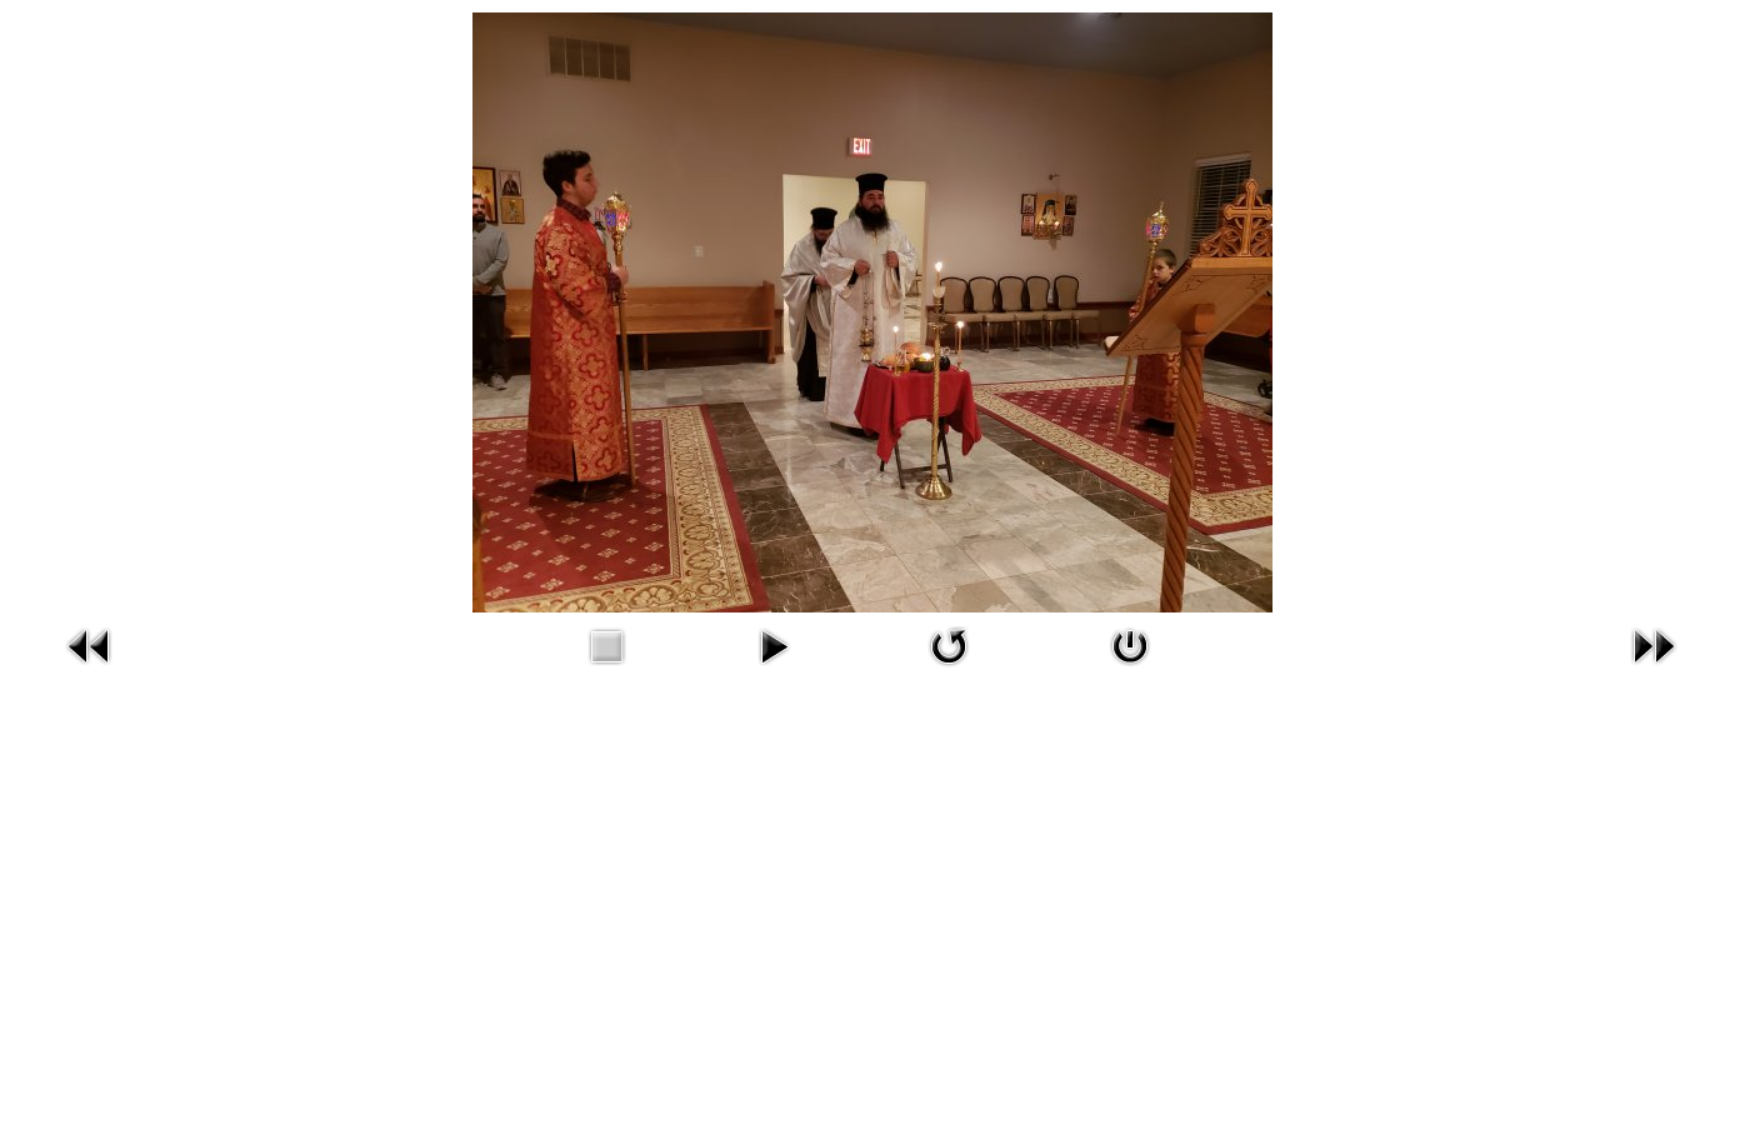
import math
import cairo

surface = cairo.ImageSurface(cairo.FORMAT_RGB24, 1743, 1122)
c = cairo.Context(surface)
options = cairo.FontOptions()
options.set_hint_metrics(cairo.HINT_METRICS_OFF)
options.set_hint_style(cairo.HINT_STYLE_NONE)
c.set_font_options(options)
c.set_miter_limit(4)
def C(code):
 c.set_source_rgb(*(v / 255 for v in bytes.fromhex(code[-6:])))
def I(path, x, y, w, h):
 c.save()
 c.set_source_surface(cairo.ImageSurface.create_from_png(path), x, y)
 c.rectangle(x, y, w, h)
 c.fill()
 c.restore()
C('ffffff')
c.paint()
I('1.png',472,12,801,601)
I('2.png',65,627,48,39)
I('3.png',587,627,40,39)
I('4.png',758,627,33,39)
I('5.png',927,626,43,42)
I('6.png',1109,627,42,40)
I('7.png',1630,627,48,39)
surface.write_to_png('o.png')
